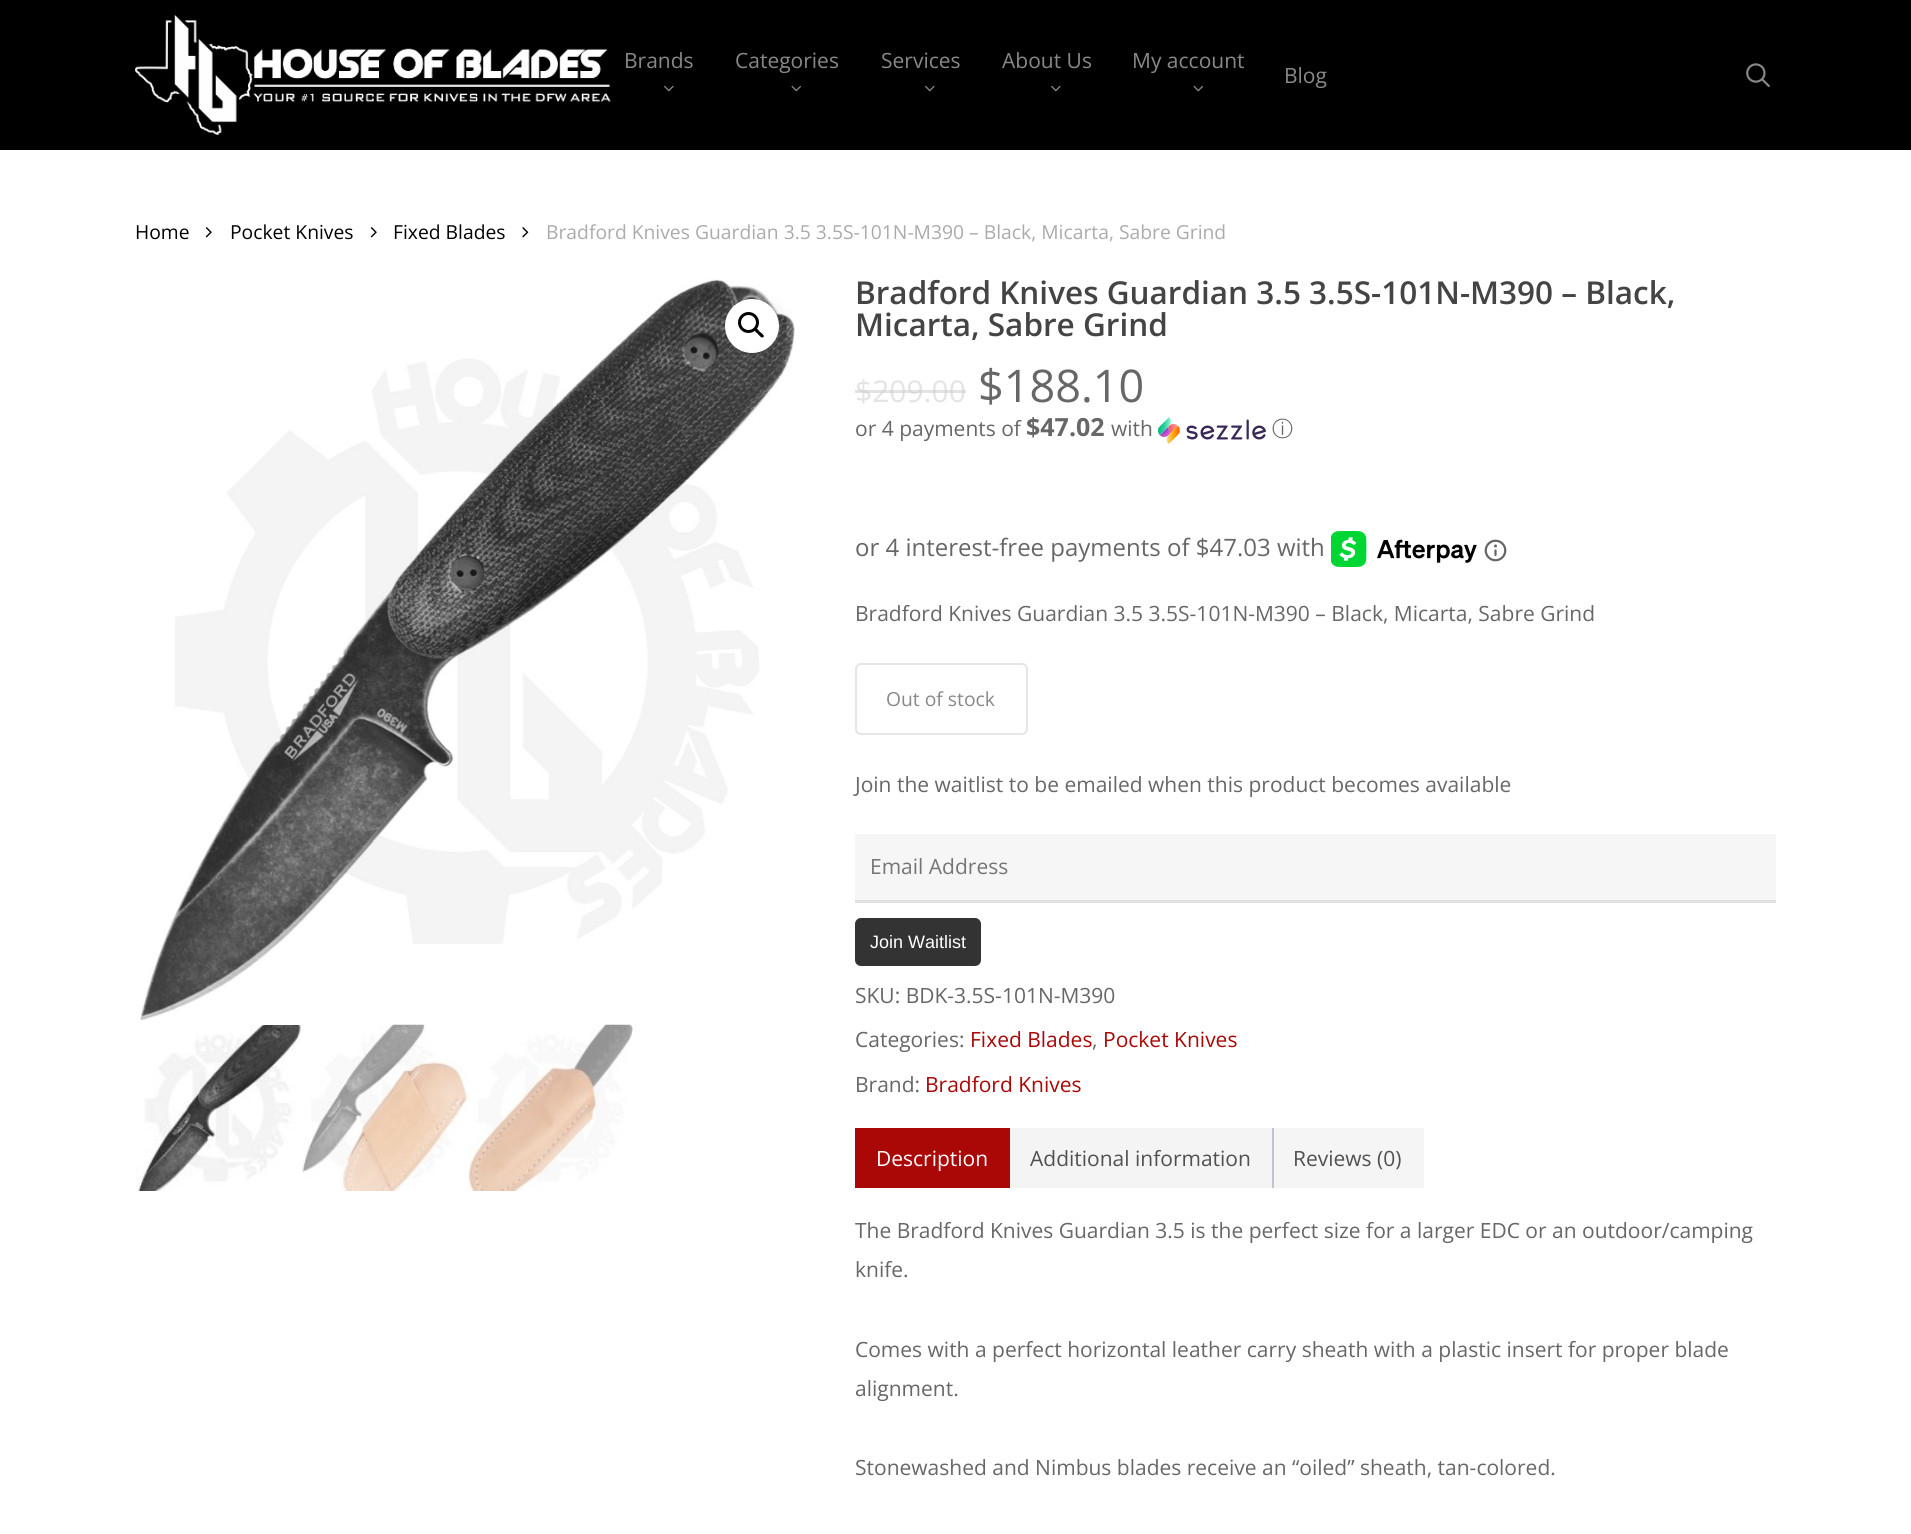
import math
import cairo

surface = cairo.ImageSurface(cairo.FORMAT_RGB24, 1911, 1534)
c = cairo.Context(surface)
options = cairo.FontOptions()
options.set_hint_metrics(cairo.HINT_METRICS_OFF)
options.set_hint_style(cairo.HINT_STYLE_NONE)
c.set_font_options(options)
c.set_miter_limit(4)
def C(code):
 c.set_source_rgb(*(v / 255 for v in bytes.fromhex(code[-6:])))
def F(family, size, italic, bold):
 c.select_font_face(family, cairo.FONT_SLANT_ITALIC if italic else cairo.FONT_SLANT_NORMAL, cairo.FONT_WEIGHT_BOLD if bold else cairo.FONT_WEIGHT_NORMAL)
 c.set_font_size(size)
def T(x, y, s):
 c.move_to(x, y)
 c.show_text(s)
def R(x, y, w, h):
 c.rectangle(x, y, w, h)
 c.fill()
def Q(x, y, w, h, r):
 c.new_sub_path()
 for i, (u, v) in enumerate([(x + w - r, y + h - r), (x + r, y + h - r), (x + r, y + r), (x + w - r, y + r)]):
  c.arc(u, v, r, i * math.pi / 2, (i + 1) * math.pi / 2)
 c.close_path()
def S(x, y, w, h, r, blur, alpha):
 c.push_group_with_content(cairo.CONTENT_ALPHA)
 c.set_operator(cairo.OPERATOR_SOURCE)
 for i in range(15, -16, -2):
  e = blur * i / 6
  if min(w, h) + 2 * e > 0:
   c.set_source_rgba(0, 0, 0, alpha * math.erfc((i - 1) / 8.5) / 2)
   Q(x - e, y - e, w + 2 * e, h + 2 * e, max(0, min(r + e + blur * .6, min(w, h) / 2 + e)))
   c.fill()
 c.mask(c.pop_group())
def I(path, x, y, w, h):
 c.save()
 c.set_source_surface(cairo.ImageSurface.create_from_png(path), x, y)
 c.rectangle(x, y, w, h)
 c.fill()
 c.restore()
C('ffffff')
c.paint()
C('f5f5f5')
R(1274,1128,150,60)
C('000000')
R(0,0,1911,150)
I('1.png',135,15,476,120)
F('Open Sans',21,0,0)
C('888888')
T(624,68,'Brands')
I('2.png',664,85,10,7)
T(735,68,'Categories')
I('3.png',791,85,10,7)
T(881,68,'Services')
I('2.png',925,85,10,7)
T(1002,68,'About Us')
I('2.png',1051,85,10,7)
T(1132,68,'My account')
I('3.png',1193,85,10,7)
T(1284,83,'Blog')
I('4.png',1746,63,24,24)
F('Open Sans',19.3,0,0)
C('000000')
T(135,239,'Home')
I('5.png',205,227,7,11)
T(230,239,'Pocket Knives')
I('5.png',370,227,7,11)
T(393,239,'Fixed Blades')
I('6.png',522,227,7,11)
C('ababab')
T(546,239,'Bradford Knives Guardian 3.5 3.5S-101N-M390 – Black, Micarta, Sabre Grind')
I('8.png',136,1024,166,167)
I('7.png',140,279,655,746)
C('000000')
S(725,302,54,54,27,9,.08)
C('ffffff')
c.arc(752,326,27,0,2 * math.pi)
c.fill()
c.arc(748.5,322.5,9,0,2 * math.pi)
C('000000')
c.set_line_width(3)
c.stroke()
c.new_path()
c.move_to(755,328.5)
c.curve_to(756.5,327,759,331,760,332)
c.curve_to(761,332.5,765,335.5,763.5,337)
c.curve_to(761.5,339,759,335,758,334)
c.curve_to(757,333,753,330.5,755,328.5)
c.close_path()
c.fill()
I('9.png',302,1024,166,167)
I('10.png',468,1024,165,167)
F('Open Sans SemiBold',31.5,0,0)
C('444444')
T(855,304,'Bradford Knives Guardian 3.5 3.5S-101N-M390 – Black,')
T(855,336,'Micarta, Sabre Grind')
F('Open Sans',30,0,0)
C('e4e4e4')
T(855,402,'$209.00')
c.set_source_rgba(0.784,0.784,0.784,0.5)
R(855,390,17,3)
R(872,390,94,3)
F('Open Sans',45,0,0)
C('676767')
T(978,402,'$188.10')
F('Open Sans',21,0,0)
T(855,436,'or 4 payments of')
F('Open Sans',25,0,1)
T(1026,436,'$47.02')
F('Open Sans',21,0,0)
T(1111,436,'with')
I('11.png',1158,417,108,27)
F('WenQuanYi Zen Hei Medium',21,0,0)
T(1272,436,'ⓘ')
F('Open Sans',24,0,0)
T(855,556,'or 4 interest-free payments of $47.03 with')
I('12.png',1331,531,146,36)
I('13.png',1484,539,23,23)
F('Open Sans',21,0,0)
T(855,621,'Bradford Knives Guardian 3.5 3.5S-101N-M390 – Black, Micarta, Sabre Grind')
Q(856,664,171,70,5)
C('e6e6e6')
c.set_line_width(2)
c.stroke()
F('Open Sans',19.3,0,0)
C('888888')
T(886,706,'Out of stock')
F('Open Sans',21,0,0)
C('676767')
T(855,792,'Join the waitlist to be emailed when this product becomes available')
C('f6f6f6')
R(855,834,921,66)
C('e0e0e0')
R(855,900,921,3)
C('757575')
T(870,874,'Email Address')
C('333333')
Q(855,918,126,48,6)
c.fill()
F('Liberation Sans',18,0,0)
C('ffffff')
T(870,948,'Join Waitlist')
F('Open Sans',21,0,0)
C('676767')
T(855,1003,'SKU: BDK-3.5S-101N-M390')
T(855,1047,'Categories:')
C('aa0707')
T(970,1047,'Fixed Blades')
C('676767')
T(1092,1047,',')
C('aa0707')
T(1103,1047,'Pocket Knives')
C('676767')
T(855,1092,'Brand:')
C('aa0707')
T(925,1092,'Bradford Knives')
R(855,1128,155,60)
C('ffffff')
T(876,1166,'Description')
C('f4f4f4')
R(1010,1128,262,60)
C('c7c0cf')
R(1272,1128,2,60)
C('515151')
T(1030,1166,'Additional information')
T(1293,1166,'Reviews (0)')
C('676767')
T(855,1238,'The Bradford Knives Guardian 3.5 is the perfect size for a larger EDC or an outdoor/camping')
T(855,1277,'knife.')
T(855,1357,'Comes with a perfect horizontal leather carry sheath with a plastic insert for proper blade')
T(855,1396,'alignment.')
T(855,1475,'Stonewashed and Nimbus blades receive an “oiled” sheath, tan-colored.')
surface.write_to_png('o.png')
